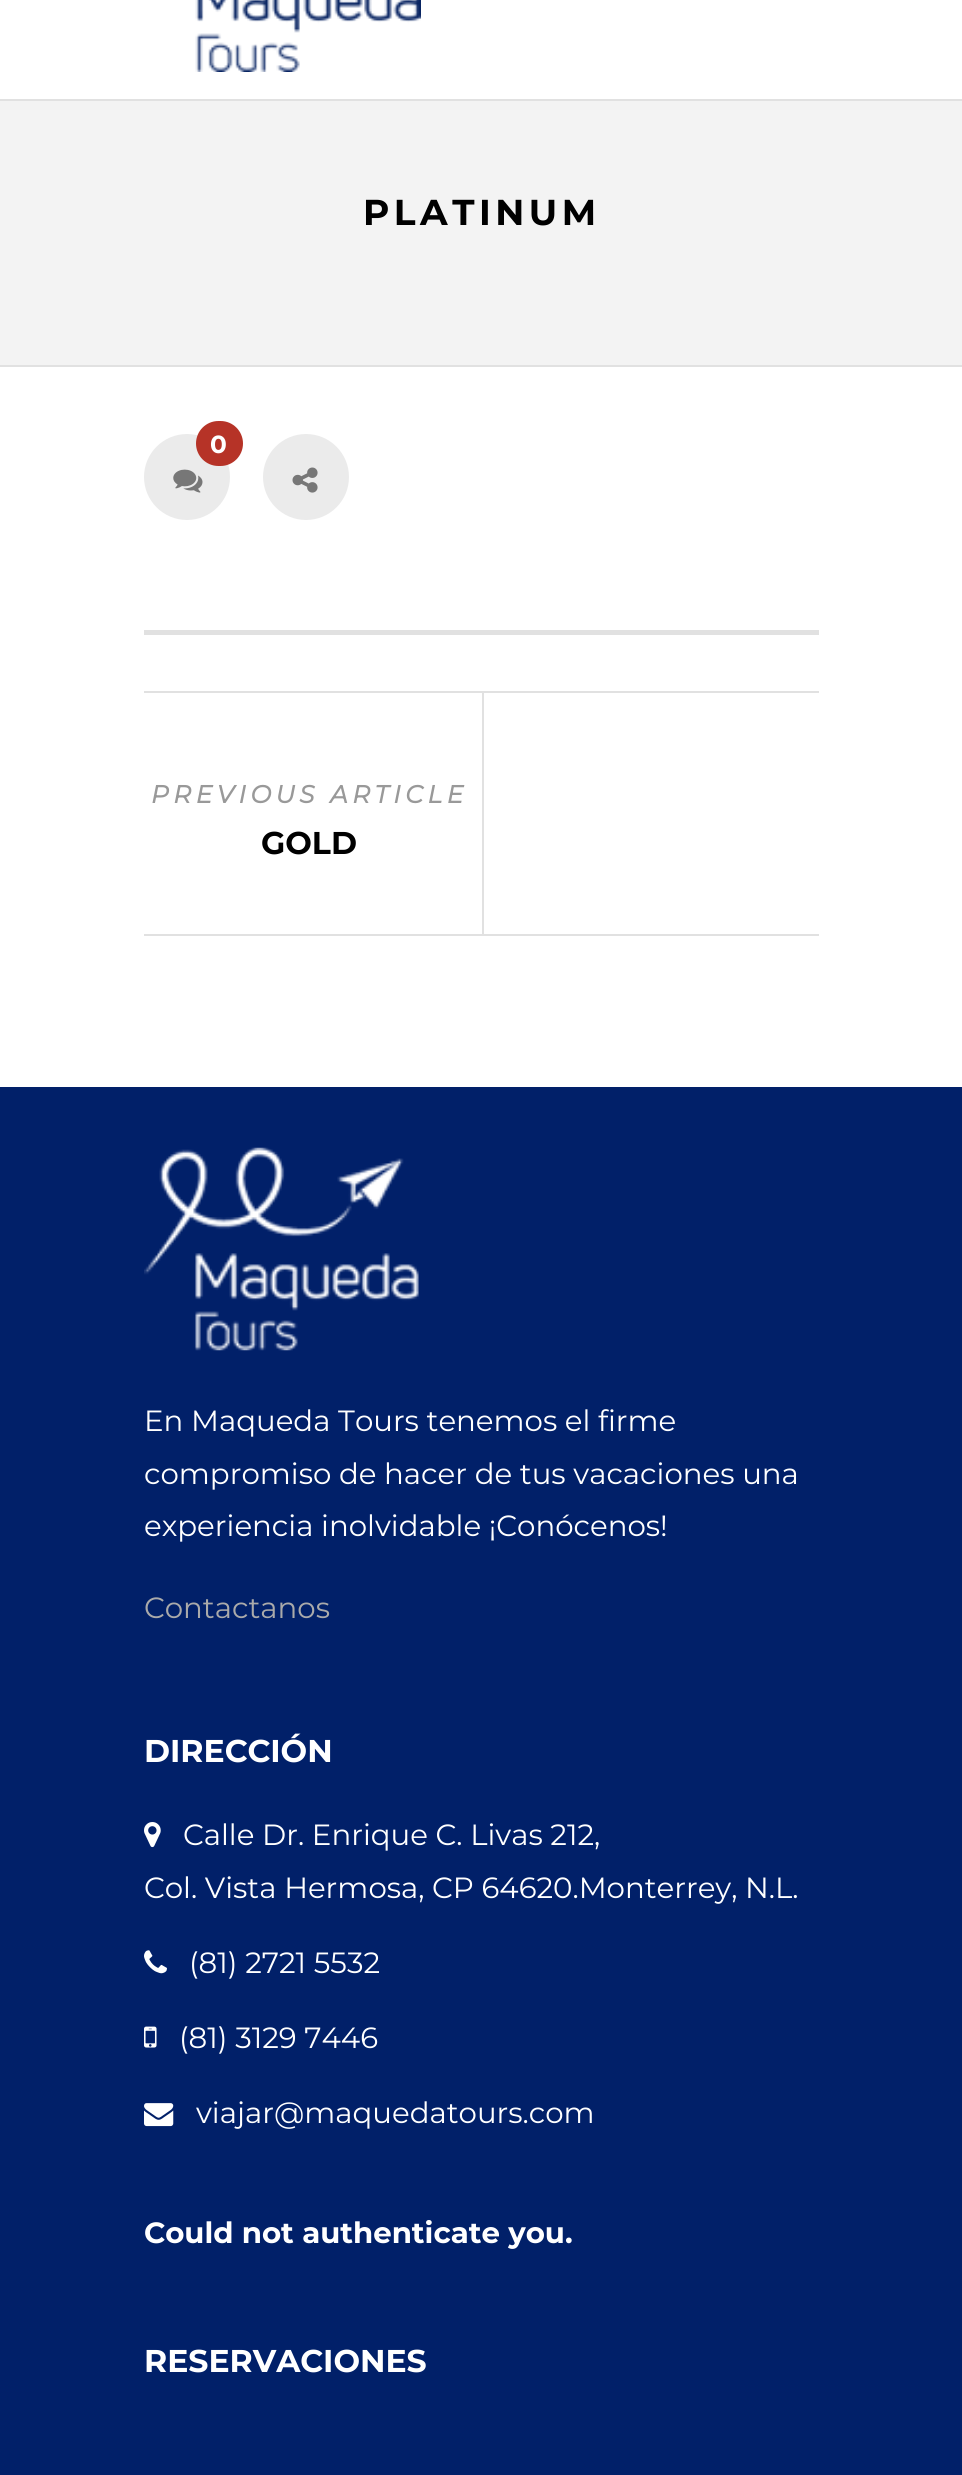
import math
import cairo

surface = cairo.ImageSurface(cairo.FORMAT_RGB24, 962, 2475)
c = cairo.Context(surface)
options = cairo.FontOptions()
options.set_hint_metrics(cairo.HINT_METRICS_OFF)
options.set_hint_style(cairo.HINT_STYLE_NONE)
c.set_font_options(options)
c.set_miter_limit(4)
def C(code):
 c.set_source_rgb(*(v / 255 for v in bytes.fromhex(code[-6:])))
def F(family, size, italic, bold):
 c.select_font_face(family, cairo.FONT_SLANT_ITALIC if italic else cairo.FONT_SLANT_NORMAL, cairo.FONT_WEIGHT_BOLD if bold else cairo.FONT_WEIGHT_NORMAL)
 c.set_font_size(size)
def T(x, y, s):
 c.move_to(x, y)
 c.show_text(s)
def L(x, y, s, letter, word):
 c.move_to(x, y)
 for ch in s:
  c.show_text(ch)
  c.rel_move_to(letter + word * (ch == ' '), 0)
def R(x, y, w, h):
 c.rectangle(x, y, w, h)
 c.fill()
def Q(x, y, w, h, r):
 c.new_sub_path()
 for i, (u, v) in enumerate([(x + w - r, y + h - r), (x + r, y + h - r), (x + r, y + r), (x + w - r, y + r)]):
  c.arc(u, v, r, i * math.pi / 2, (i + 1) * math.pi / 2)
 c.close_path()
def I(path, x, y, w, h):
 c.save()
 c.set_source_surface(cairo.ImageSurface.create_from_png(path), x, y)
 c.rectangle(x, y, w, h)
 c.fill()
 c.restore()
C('ffffff')
c.paint()
C('e1e1e1')
R(0,99,962,2)
I('1.png',195,0,226,72)
C('f3f3f3')
R(0,101,962,264)
C('e1e1e1')
R(0,365,962,2)
F('Montserrat',36,0,1)
C('000000')
L(363,225,'PLATINUM',4.5,0)
C('ebebeb')
c.new_path()
c.arc(187,477,43,0,2 * math.pi)
c.fill()
C('b63327')
Q(196,421,47,45,22.5)
c.fill()
F('Montserrat',24.75,0,1)
C('ffffff')
T(210,453,'0')
I('2.png',173,469,30,24)
C('ebebeb')
c.arc(306,477,43,0,2 * math.pi)
c.fill()
I('3.png',292,467,26,26)
C('e1e1e1')
R(144,630,675,5)
R(144,691,675,2)
R(144,934,675,2)
F('Montserrat',24.75,1,1)
C('999999')
L(151,803,'PREVIOUS ARTICLE',4.5,0)
F('Montserrat',31.5,0,1)
C('000000')
T(261,854,'GOLD')
C('e1e1e1')
R(482,693,2,241)
C('012069')
R(0,1087,962,1388)
I('4.png',144,1147,275,204)
F('Montserrat',29.25,0,0)
C('ffffff')
T(144,1431,'En Maqueda Tours tenemos el firme')
T(144,1484,'compromiso de hacer de tus vacaciones una')
T(144,1536,'experiencia inolvidable ¡Conócenos!')
C('aaaaaa')
T(144,1618,'Contactanos')
F('Montserrat',31.5,0,1)
C('ffffff')
T(144,1762,'DIRECCIÓN')
I('5.png',144,1822,17,26)
F('Montserrat',29.25,0,0)
T(183,1845,'Calle Dr. Enrique C. Livas 212,')
T(144,1898,'Col. Vista Hermosa, CP 64620.Monterrey, N.L.')
I('6.png',144,1950,23,24)
T(189,1973,'(81) 2721 5532')
I('7.png',144,2026,13,22)
T(179,2048,'(81) 3129 7446')
I('8.png',144,2103,30,24)
T(196,2123,'viajar@maquedatours.com')
F('Montserrat',29.25,0,1)
T(144,2243,'Could not authenticate you.')
F('Montserrat',31.5,0,1)
T(144,2372,'RESERVACIONES')
surface.write_to_png('o.png')
